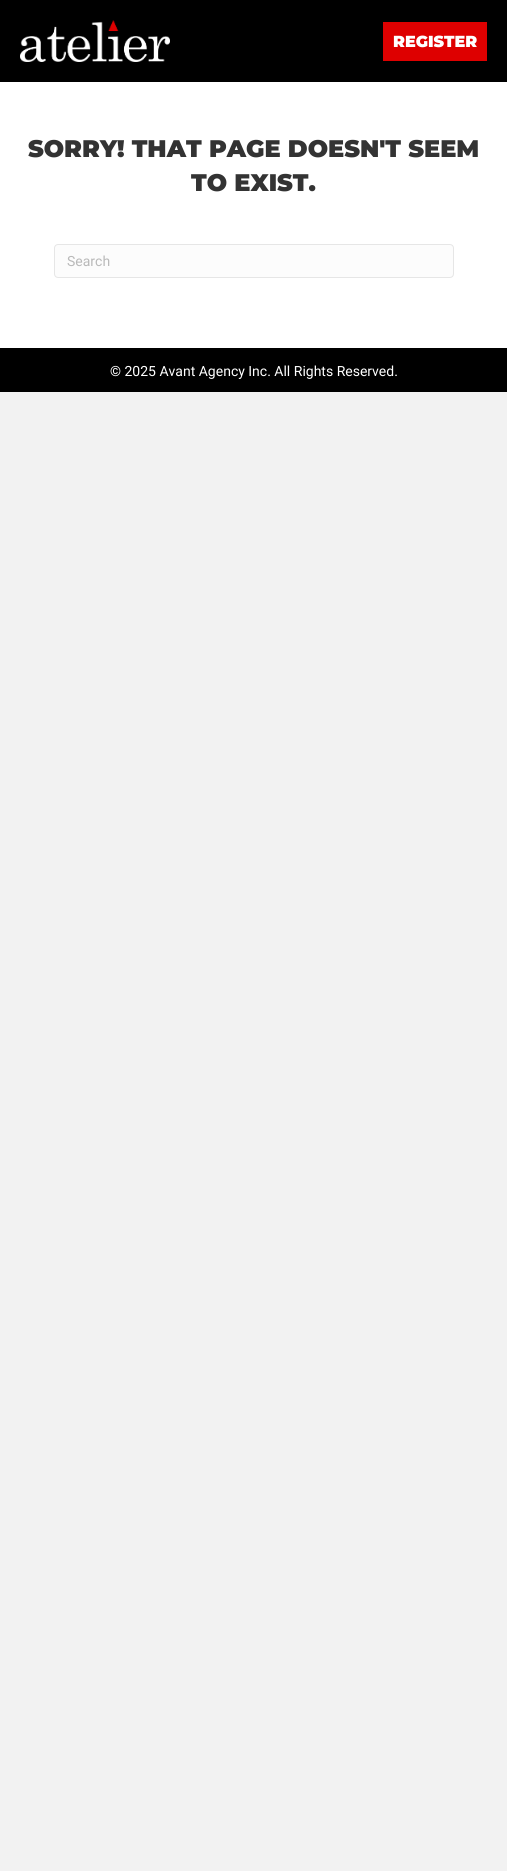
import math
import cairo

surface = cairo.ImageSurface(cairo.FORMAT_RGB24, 507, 1871)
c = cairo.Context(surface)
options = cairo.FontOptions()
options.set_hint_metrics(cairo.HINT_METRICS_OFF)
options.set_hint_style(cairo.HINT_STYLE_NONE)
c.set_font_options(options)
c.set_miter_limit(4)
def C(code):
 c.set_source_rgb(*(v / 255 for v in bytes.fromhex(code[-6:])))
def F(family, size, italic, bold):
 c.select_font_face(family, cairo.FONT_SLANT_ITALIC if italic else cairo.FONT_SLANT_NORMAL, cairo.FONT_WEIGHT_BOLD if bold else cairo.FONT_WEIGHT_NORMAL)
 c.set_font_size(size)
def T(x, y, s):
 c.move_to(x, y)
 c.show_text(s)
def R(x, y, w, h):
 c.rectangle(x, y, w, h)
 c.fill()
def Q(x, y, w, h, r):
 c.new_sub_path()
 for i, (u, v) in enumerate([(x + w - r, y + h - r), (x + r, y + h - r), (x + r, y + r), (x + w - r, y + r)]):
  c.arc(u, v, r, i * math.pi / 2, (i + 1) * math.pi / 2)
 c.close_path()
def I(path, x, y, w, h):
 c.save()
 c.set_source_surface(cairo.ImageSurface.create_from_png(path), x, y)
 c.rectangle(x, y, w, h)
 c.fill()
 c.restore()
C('f2f2f2')
c.paint()
C('000000')
R(0,0,507,82)
I('1.png',20,20,150,42)
C('de0000')
R(383,22,104,39)
F('Montserrat Black',16,0,0)
C('ffffff')
T(393,47,'REGISTER')
R(0,82,507,266)
F('Montserrat Black',24,0,0)
C('333333')
T(28,157,'SORRY! THAT PAGE DOESN\'T SEEM')
T(191,191,'TO EXIST.')
C('fcfcfc')
Q(54.5,244.5,399,33,3.5)
c.fill_preserve()
C('e6e6e6')
c.set_line_width(1)
c.stroke()
F('Roboto',14,0,0)
C('b9b9b9')
T(67,266,'Search')
C('000000')
R(0,348,507,44)
C('ffffff')
T(110,376,'© 2025 Avant Agency Inc. All Rights Reserved.')
surface.write_to_png('o.png')
